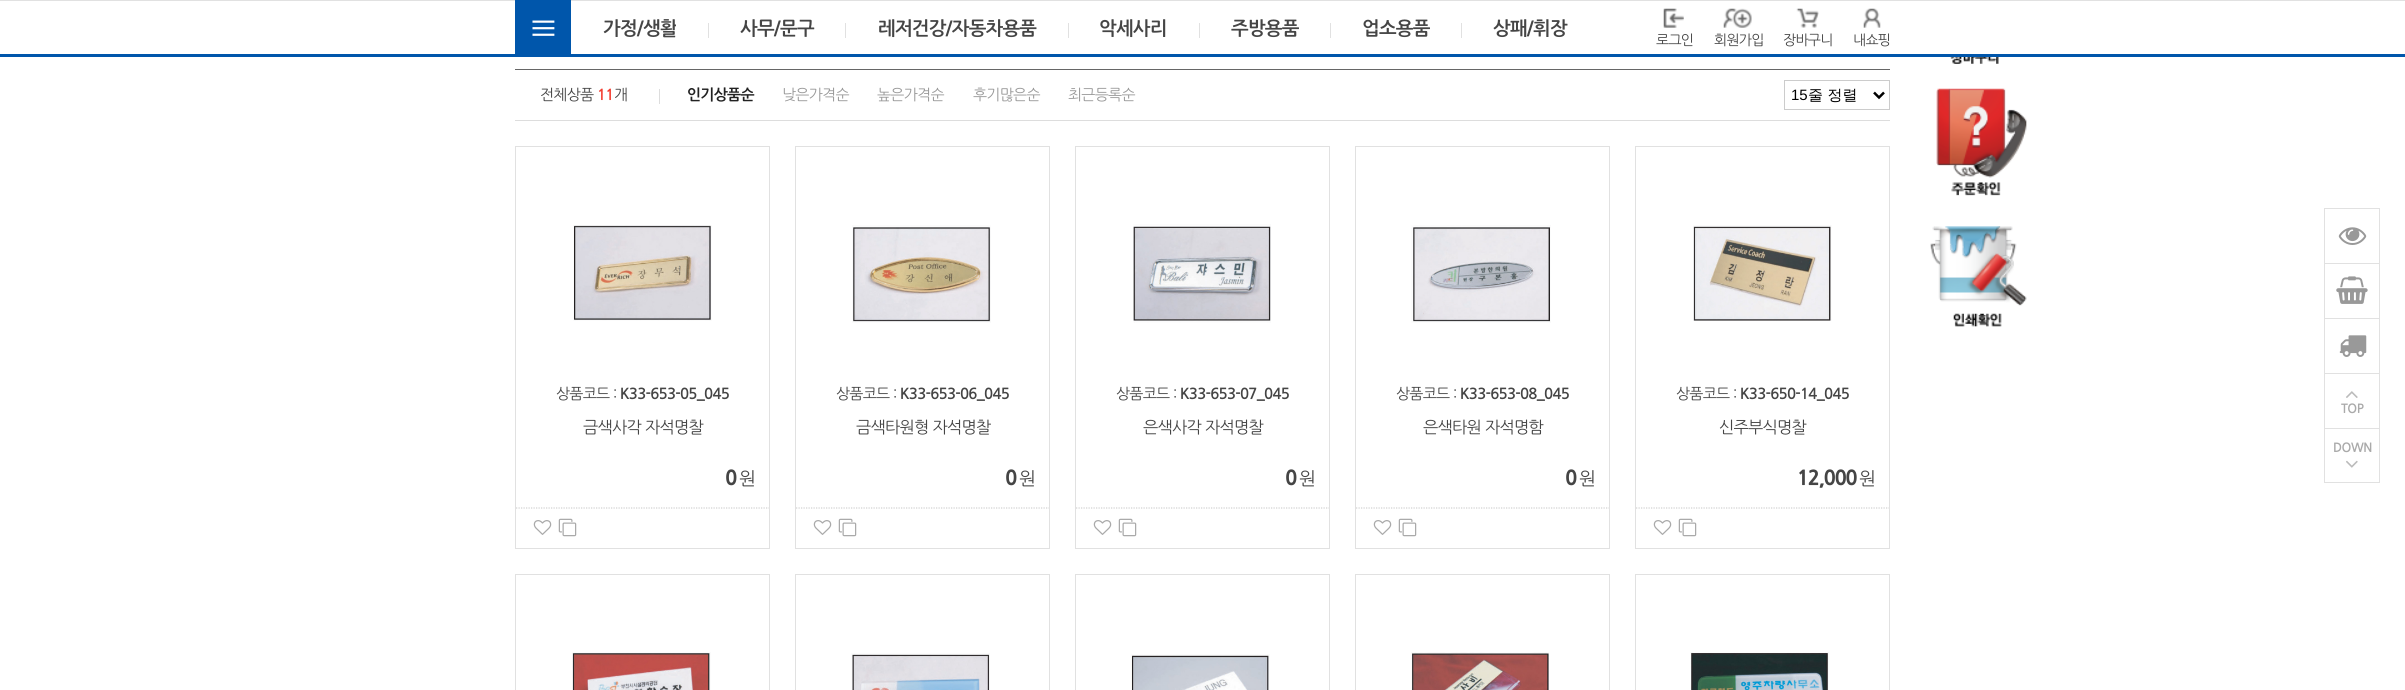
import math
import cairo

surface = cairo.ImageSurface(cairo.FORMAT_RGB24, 2405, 690)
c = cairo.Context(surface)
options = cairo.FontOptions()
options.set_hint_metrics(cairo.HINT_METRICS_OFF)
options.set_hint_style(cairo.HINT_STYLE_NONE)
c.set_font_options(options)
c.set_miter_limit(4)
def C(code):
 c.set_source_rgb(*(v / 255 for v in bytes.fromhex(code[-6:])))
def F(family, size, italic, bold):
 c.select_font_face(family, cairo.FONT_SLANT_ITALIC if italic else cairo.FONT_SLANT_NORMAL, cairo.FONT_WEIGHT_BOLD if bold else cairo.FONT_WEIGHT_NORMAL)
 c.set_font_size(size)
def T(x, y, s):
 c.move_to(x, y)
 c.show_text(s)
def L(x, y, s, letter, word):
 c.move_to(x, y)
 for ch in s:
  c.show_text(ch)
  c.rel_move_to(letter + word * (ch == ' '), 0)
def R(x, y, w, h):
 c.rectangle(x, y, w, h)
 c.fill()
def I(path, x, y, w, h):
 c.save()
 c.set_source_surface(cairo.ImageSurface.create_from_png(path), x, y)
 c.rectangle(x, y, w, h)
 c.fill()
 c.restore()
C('ffffff')
c.paint()
C('e1e1e1')
R(0,0,2405,1)
C('0056ab')
R(0,54,2405,3)
R(515,0,56,54)
I('1.png',532,20,23,16)
c.save()
c.rectangle(603,1,73,54)
c.clip()
F('NanumGothic',18.75,0,1)
C('454545')
L(603,35,'가정/생활',-.75,0)
c.restore()
C('e1e1e1')
R(708,23,1,15)
F('NanumGothic',18.75,0,1)
C('454545')
L(740,35,'사무/문구',-.75,0)
C('e1e1e1')
R(845,23,1,15)
C('454545')
L(878,35,'레저건강/자동차용품',-.75,0)
C('e1e1e1')
R(1068,23,1,15)
C('454545')
L(1099,35,'악세사리',-.75,0)
C('e1e1e1')
R(1199,23,1,15)
C('454545')
L(1231,35,'주방용품',-.75,0)
C('e1e1e1')
R(1330,23,1,15)
C('454545')
L(1362,35,'업소용품',-.75,0)
C('e1e1e1')
R(1461,23,1,15)
C('454545')
L(1493,35,'상패/휘장',-.75,0)
I('2.png',1663,8,21,20)
F('NanumGothic',14,0,0)
L(1656,45,'로그인',-.75,0)
I('3.png',1723,8,29,20)
L(1714,45,'회원가입',-.75,0)
I('4.png',1796,8,23,20)
L(1783,45,'장바구니',-.75,0)
I('5.png',1863,8,18,20)
L(1853,45,'내쇼핑',-.75,0)
C('666666')
R(515,69,1375,1)
C('dddddd')
R(515,120,1375,1)
F('NanumGothic',15,0,0)
C('454545')
L(540,100,'전체상품',-.75,0)
F('NanumGothic',15,0,1)
C('f33e31')
L(597,100,'11',-.75,0)
F('NanumGothic',15,0,0)
C('454545')
L(614,100,'개',-.75,0)
C('dddddd')
R(659,89,1,15)
F('NanumGothic',15,0,1)
C('222222')
L(687,100,'인기상품순',-.75,0)
F('NanumGothic',15,0,0)
C('999999')
L(782,100,'낮은가격순',-.75,0)
L(877,100,'높은가격순',-.75,0)
L(973,100,'후기많은순',-.75,0)
L(1068,100,'최근등록순',-.75,0)
c.rectangle(1784.5,80.5,105,29)
C('cccccc')
c.set_line_width(1)
c.stroke()
c.new_path()
c.move_to(1874,92.5)
c.line_to(1879,97.5)
c.line_to(1884,92.5)
C('000000')
c.set_line_width(2.5)
c.stroke()
F('Liberation Sans',15,0,0)
T(1791,100,'15')
F('WenQuanYi Zen Hei Medium',15,0,0)
T(1808,100,'줄 정렬')
c.rectangle(515.5,146.5,254,402)
C('e1e1e1')
c.set_line_width(1)
c.stroke()
I('6.png',573,225,139,96)
F('NanumGothic',15,0,0)
C('454545')
L(556,399,'상품코드 :',-.75,0)
F('NanumGothic',15,0,1)
L(620,399,'K33-653-05_045',-.75,0)
F('NanumGothic',16.25,0,0)
L(583,433,'금색사각 자석명찰',-.75,0)
F('NanumGothic ExtraBold',20,0,0)
L(725,485,'0',-1.25,0)
F('NanumGothic',18,0,0)
L(739,485,'원',-1.25,0)
c.new_path()
c.move_to(516,508)
c.line_to(769,508)
C('d1d1d1')
c.set_line_width(1.2)
c.set_dash([1.25,1.25])
c.stroke()
I('7.png',533,520,19,15)
I('8.png',558,518,19,19)
c.rectangle(795.5,146.5,254,402)
C('e1e1e1')
c.set_line_width(1)
c.set_dash([])
c.stroke()
I('9.png',852,225,139,98)
F('NanumGothic',15,0,0)
C('454545')
L(836,399,'상품코드 :',-.75,0)
F('NanumGothic',15,0,1)
L(900,399,'K33-653-06_045',-.75,0)
F('NanumGothic',16.25,0,0)
L(856,433,'금색타원형 자석명찰',-.75,0)
F('NanumGothic ExtraBold',20,0,0)
L(1005,485,'0',-1.25,0)
F('NanumGothic',18,0,0)
L(1019,485,'원',-1.25,0)
c.new_path()
c.move_to(796,508)
c.line_to(1049,508)
C('d1d1d1')
c.set_line_width(1.2)
c.set_dash([1.25,1.25])
c.stroke()
I('7.png',813,520,19,15)
I('8.png',838,518,19,19)
c.rectangle(1075.5,146.5,254,402)
C('e1e1e1')
c.set_line_width(1)
c.set_dash([])
c.stroke()
I('10.png',1133,224,138,99)
F('NanumGothic',15,0,0)
C('454545')
L(1116,399,'상품코드 :',-.75,0)
F('NanumGothic',15,0,1)
L(1180,399,'K33-653-07_045',-.75,0)
F('NanumGothic',16.25,0,0)
L(1143,433,'은색사각 자석명찰',-.75,0)
F('NanumGothic ExtraBold',20,0,0)
L(1285,485,'0',-1.25,0)
F('NanumGothic',18,0,0)
L(1299,485,'원',-1.25,0)
c.new_path()
c.move_to(1076,508)
c.line_to(1329,508)
C('d1d1d1')
c.set_line_width(1.2)
c.set_dash([1.25,1.25])
c.stroke()
I('7.png',1093,520,19,15)
I('8.png',1118,518,19,19)
c.rectangle(1355.5,146.5,254,402)
C('e1e1e1')
c.set_line_width(1)
c.set_dash([])
c.stroke()
I('11.png',1411,225,140,98)
F('NanumGothic',15,0,0)
C('454545')
L(1396,399,'상품코드 :',-.75,0)
F('NanumGothic',15,0,1)
L(1460,399,'K33-653-08_045',-.75,0)
F('NanumGothic',16.25,0,0)
L(1423,433,'은색타원 자석명함',-.75,0)
F('NanumGothic ExtraBold',20,0,0)
L(1565,485,'0',-1.25,0)
F('NanumGothic',18,0,0)
L(1579,485,'원',-1.25,0)
c.new_path()
c.move_to(1356,508)
c.line_to(1609,508)
C('d1d1d1')
c.set_line_width(1.2)
c.set_dash([1.25,1.25])
c.stroke()
I('7.png',1373,520,19,15)
I('8.png',1398,518,19,19)
c.rectangle(1635.5,146.5,254,402)
C('e1e1e1')
c.set_line_width(1)
c.set_dash([])
c.stroke()
I('12.png',1693,225,139,96)
F('NanumGothic',15,0,0)
C('454545')
L(1676,399,'상품코드 :',-.75,0)
F('NanumGothic',15,0,1)
L(1740,399,'K33-650-14_045',-.75,0)
F('NanumGothic',16.25,0,0)
L(1719,433,'신주부식명찰',-.75,0)
F('NanumGothic ExtraBold',20,0,0)
L(1797,485,'12,000',-1.25,0)
F('NanumGothic',18,0,0)
L(1859,485,'원',-1.25,0)
c.new_path()
c.move_to(1636,508)
c.line_to(1889,508)
C('d1d1d1')
c.set_line_width(1.2)
c.set_dash([1.25,1.25])
c.stroke()
I('7.png',1653,520,19,15)
I('8.png',1678,518,19,19)
c.rectangle(515.5,574.5,254,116)
C('e1e1e1')
c.set_line_width(1)
c.set_dash([])
c.stroke()
I('13.png',572,652,139,38)
c.rectangle(795.5,574.5,254,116)
c.stroke()
I('14.png',851,653,139,37)
c.rectangle(1075.5,574.5,254,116)
c.stroke()
I('15.png',1131,654,139,36)
c.rectangle(1355.5,574.5,254,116)
c.stroke()
I('16.png',1411,652,138,38)
c.rectangle(1635.5,574.5,254,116)
c.stroke()
I('17.png',1690,652,139,38)
I('18.png',1950,57,49,7)
I('19.png',1936,88,91,108)
I('20.png',1930,226,97,101)
c.rectangle(2324.5,208.5,55,274)
c.stroke()
I('21.png',2338,227,29,18)
R(2325,263,54,1)
I('22.png',2336,276,32,28)
R(2325,318,54,1)
I('23.png',2339,335,28,22)
R(2325,373,54,1)
I('24.png',2346,391,12,7)
F('NanumGothic',12.5,0,1)
C('aaaaaa')
L(2341,413,'TOP',-.5,0)
C('e1e1e1')
R(2325,428,54,1)
C('aaaaaa')
L(2333,452,'DOWN',-.5,0)
I('25.png',2346,460,12,8)
surface.write_to_png('o.png')
